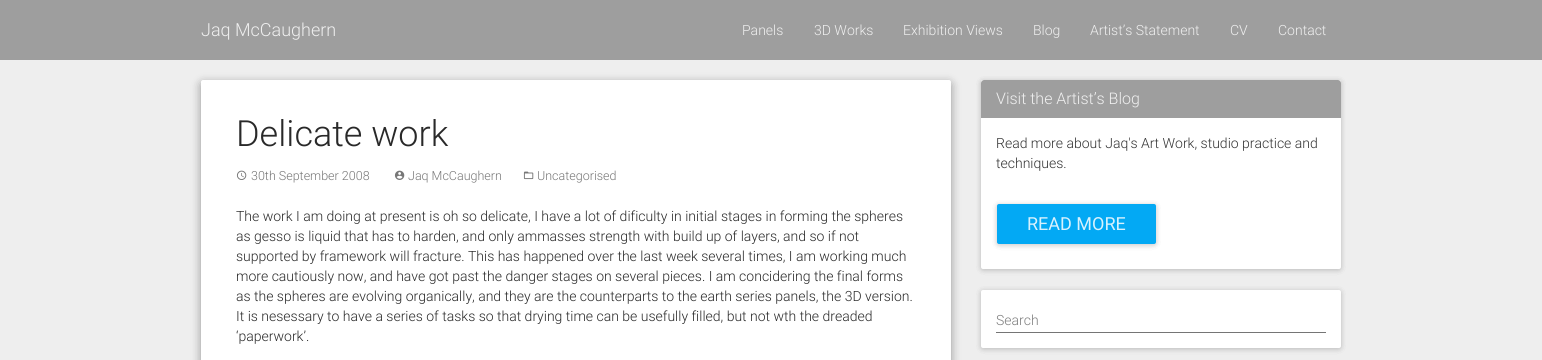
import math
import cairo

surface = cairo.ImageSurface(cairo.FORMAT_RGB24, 1542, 360)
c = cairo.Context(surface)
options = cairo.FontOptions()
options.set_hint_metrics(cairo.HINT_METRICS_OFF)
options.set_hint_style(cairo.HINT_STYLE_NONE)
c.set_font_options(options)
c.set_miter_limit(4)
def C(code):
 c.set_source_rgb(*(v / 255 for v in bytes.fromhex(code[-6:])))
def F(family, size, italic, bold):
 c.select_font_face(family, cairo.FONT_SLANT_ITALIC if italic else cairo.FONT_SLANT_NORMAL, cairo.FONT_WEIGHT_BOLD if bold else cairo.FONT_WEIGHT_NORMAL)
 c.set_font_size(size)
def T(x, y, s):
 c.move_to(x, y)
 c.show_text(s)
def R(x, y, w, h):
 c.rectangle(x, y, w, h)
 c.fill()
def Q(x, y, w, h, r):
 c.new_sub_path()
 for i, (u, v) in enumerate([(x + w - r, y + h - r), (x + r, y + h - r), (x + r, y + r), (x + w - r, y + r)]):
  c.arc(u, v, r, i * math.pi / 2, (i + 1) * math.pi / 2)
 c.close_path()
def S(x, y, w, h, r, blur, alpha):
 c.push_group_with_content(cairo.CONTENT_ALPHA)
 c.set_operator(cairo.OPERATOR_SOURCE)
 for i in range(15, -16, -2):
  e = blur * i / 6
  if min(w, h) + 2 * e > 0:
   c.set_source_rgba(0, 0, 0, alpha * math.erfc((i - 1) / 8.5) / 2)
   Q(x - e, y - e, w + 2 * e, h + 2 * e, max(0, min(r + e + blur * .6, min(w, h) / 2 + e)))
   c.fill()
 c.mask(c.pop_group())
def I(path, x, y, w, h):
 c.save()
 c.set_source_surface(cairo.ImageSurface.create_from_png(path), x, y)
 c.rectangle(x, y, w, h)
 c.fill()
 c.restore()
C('eeeeee')
c.paint()
C('9e9e9e')
R(0,0,1542,60)
F('Roboto Light',18,0,0)
C('efefef')
T(201,36,'Jaq McCaughern')
F('Roboto Light',14,0,0)
T(742,35,'Panels')
T(814,35,'3D Works')
T(903,35,'Exhibition Views')
T(1033,35,'Blog')
T(1090,35,'Artist’s Statement')
T(1230,35,'CV')
T(1278,35,'Contact')
C('000000')
S(201,83,750,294,2,5,.16)
S(201,83,750,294,2,5,.23)
C('ffffff')
Q(201,80,750,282,2)
c.fill()
F('Roboto Light',36,0,0)
C('292929')
T(236,146,'Delicate work')
I('1.png',236,170,11,10)
F('Roboto Light',12.5,0,0)
C('777777')
T(251,180,'30th September 2008')
I('2.png',394,170,11,10)
T(408,180,'Jaq McCaughern')
I('3.png',523,171,11,9)
T(537,180,'Uncategorised')
F('Roboto Light',14,0,0)
C('292929')
T(236,221,'The work I am doing at present is oh so delicate, I have a lot of dificulty in initial stages in forming the spheres')
T(236,241,'as gesso is liquid that has to harden, and only ammasses strength with build up of layers, and so if not')
T(236,261,'supported by framework will fracture. This has happened over the last week several times, I am working much')
T(236,281,'more cautiously now, and have got past the danger stages on several pieces. I am concidering the final forms')
T(236,301,'as the spheres are evolving organically, and they are the counterparts to the earth series panels, the 3D version.')
T(236,321,'It is nesessary to have a series of tasks so that drying time can be usefully filled, but not wth the dreaded')
T(236,341,'‘paperwork’.')
C('000000')
S(981,81,360,189,2,3,.12)
S(981,81,360,189,2,3,.12)
C('ffffff')
Q(981,80,360,189,2)
c.fill()
C('9e9e9e')
c.new_path()
c.move_to(984,80)
c.line_to(1338,80)
c.curve_to(1339.5,80,1341,81.5,1341,83)
c.line_to(1341,118)
c.line_to(981,118)
c.line_to(981,83)
c.curve_to(981,81.5,982.5,80,984,80)
c.close_path()
c.fill()
F('Roboto Light',16,0,0)
C('efefef')
T(996,104,'Visit the Artist’s Blog')
F('Roboto Light',14,0,0)
C('333333')
T(996,148,'Read more about Jaq\'s Art Work, studio practice and')
T(996,168,'techniques.')
C('000000')
S(997,205,159,40,2,3,.12)
S(997,205,159,40,2,3,.12)
C('03a9f4')
Q(997,204,159,40,2)
c.fill()
F('Roboto',18,0,0)
C('d7f1fd')
T(1027,230,'READ MORE')
C('000000')
S(981,291,360,58,2,3,.12)
S(981,291,360,58,2,3,.12)
C('ffffff')
Q(981,290,360,58,2)
c.fill()
F('Roboto Light',14,0,0)
C('7e7e7e')
T(996,325,'Search')
C('757575')
R(996,332,330,1)
surface.write_to_png('o.png')
